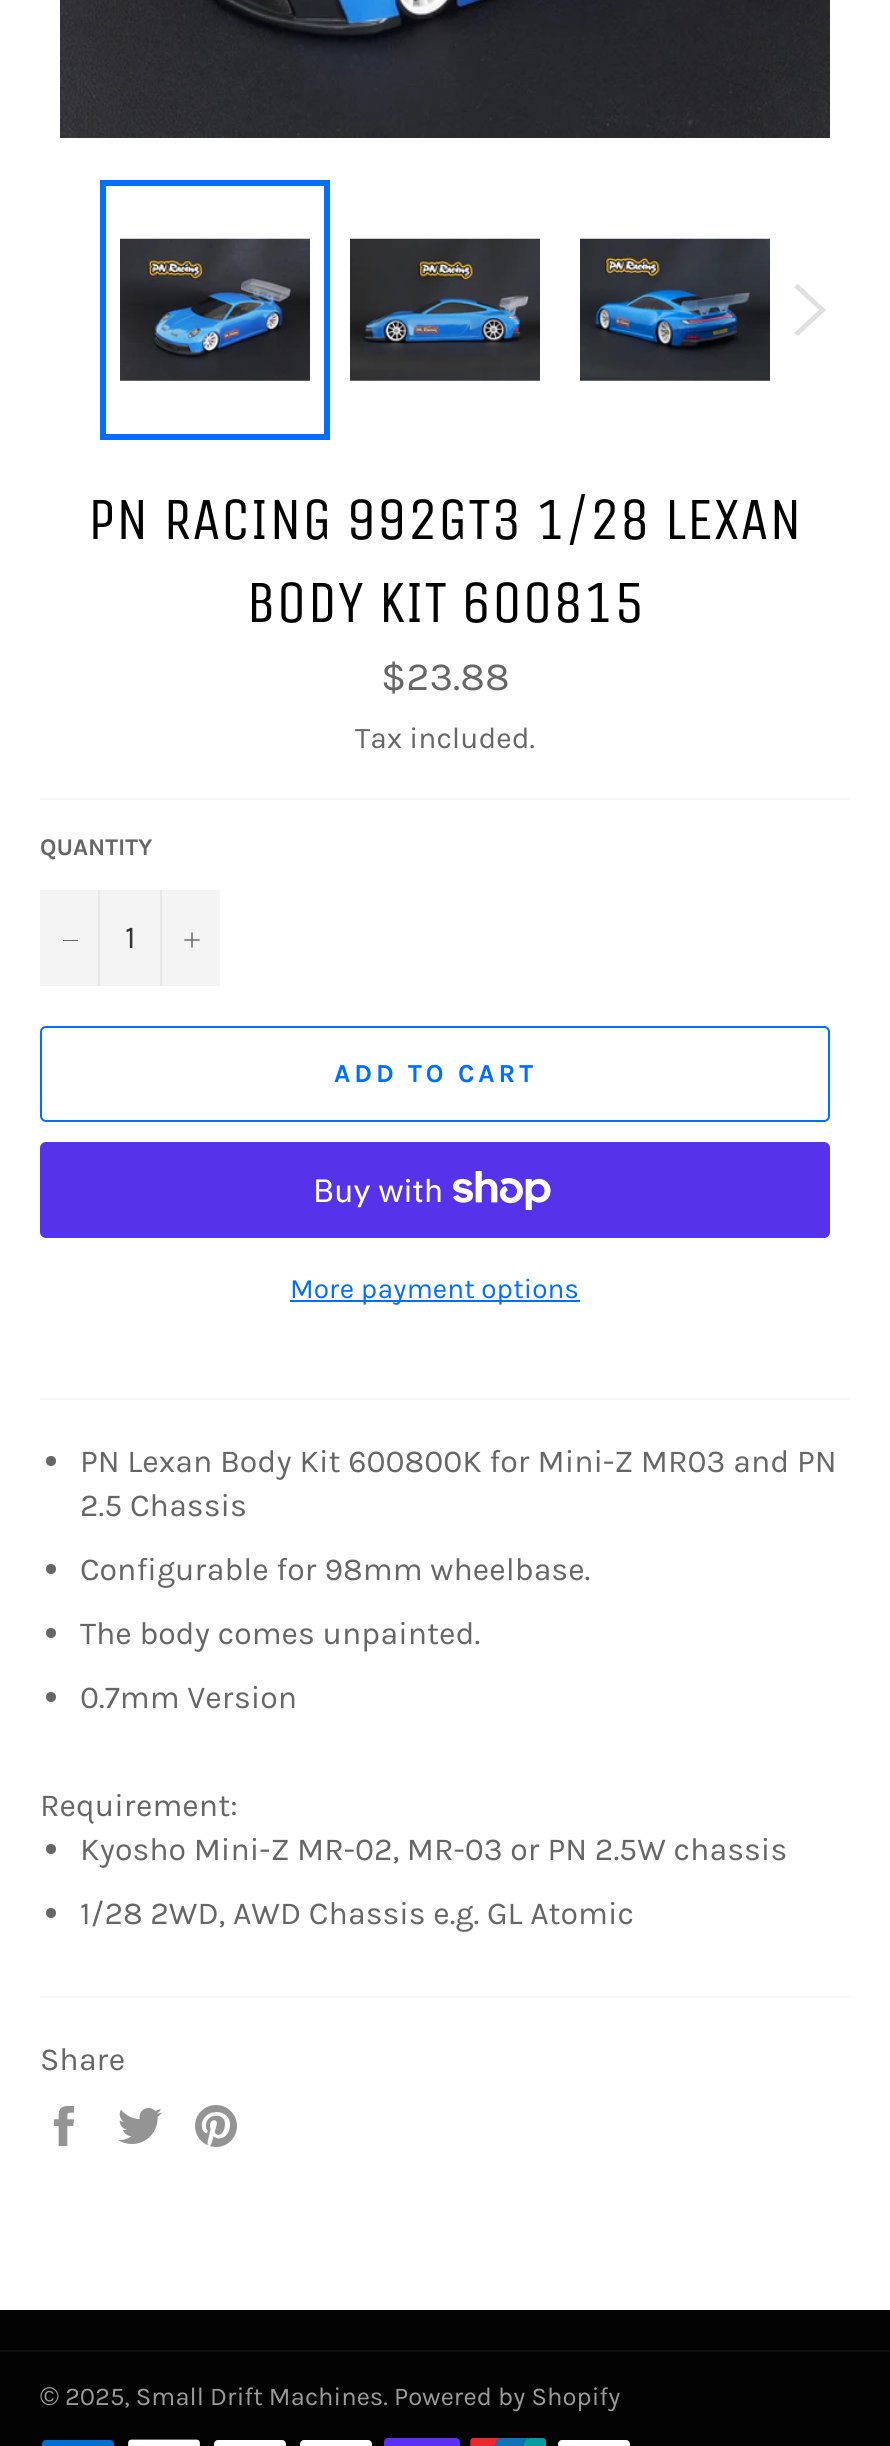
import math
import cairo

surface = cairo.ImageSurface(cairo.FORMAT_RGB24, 890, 2446)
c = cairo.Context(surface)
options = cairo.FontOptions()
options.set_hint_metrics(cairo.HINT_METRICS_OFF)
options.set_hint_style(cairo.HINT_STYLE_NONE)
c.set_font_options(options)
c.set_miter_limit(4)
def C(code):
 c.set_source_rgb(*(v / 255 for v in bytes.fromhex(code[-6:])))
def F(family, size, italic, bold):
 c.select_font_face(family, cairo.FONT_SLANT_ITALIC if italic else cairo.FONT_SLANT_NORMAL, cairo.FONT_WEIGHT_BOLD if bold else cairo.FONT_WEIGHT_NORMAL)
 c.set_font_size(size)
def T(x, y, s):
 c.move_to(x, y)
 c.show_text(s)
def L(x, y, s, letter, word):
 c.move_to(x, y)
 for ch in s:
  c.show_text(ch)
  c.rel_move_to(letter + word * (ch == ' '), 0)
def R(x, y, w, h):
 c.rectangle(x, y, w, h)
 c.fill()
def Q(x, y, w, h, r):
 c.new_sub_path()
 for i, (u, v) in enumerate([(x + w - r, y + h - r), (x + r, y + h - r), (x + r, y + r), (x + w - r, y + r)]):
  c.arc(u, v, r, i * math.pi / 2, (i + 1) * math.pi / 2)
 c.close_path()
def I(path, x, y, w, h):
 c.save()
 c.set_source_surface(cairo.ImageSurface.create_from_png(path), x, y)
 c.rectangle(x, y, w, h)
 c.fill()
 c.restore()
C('ffffff')
c.paint()
I('1.png',60,0,770,138)
I('2.png',120,238,190,143)
c.rectangle(103,183,224,254)
C('006eff')
c.set_line_width(6)
c.stroke()
I('3.png',350,238,190,143)
I('4.png',580,238,190,143)
C('e0e0e0')
c.new_path()
c.move_to(794,287)
c.line_to(798,284)
c.line_to(826,310)
c.line_to(798,336)
c.line_to(794,333)
c.line_to(819,310)
c.close_path()
c.fill()
F('Unica One',60,0,0)
C('030303')
T(88,539,'PN RACING 992GT3 1/28 LEXAN')
T(246,622,'BODY KIT 600815')
F('Karla',40,0,0)
C('666666')
T(381,690,'$23.88')
F('Karla',30,0,0)
T(355,748,'Tax included.')
C('f7f7f7')
R(40,798,810,2)
F('Karla',24,0,1)
C('666666')
T(40,855,'QUANTITY')
C('f4f4f4')
R(40,890,180,96)
C('e7e7e7')
R(98,890,2,96)
C('666666')
R(63,940,15,1)
F('Karla',32,0,0)
C('333333')
T(125,948,'1')
C('e7e7e7')
R(160,890,2,96)
I('5.png',184,932,16,16)
Q(41,1027,788,94,5)
C('006eff')
c.set_line_width(2)
c.stroke()
F('Karla',26,0,1)
L(334,1082,'ADD TO CART',3.9,0)
C('5433eb')
Q(40,1142,790,96,6)
c.fill()
F('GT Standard',32,0,0)
C('ffffff')
T(313,1202,'Buy with')
I('6.png',453,1171,98,39)
C('006eff')
R(290,1300,290,2)
F('Karla',28,0,0)
T(290,1298,'More payment options')
C('f7f7f7')
R(40,1398,810,2)
C('666666')
c.new_path()
c.arc(51,1461,5,0,2 * math.pi)
c.fill()
F('Karla',32,0,0)
T(80,1472,'PN Lexan Body Kit 600800K for Mini-Z MR03 and PN')
T(80,1516,'2.5 Chassis')
c.new_path()
c.arc(51,1569,5,0,2 * math.pi)
c.fill()
T(80,1580,'Configurable for 98mm wheelbase.')
c.new_path()
c.arc(51,1633,5,0,2 * math.pi)
c.fill()
T(80,1644,'The body comes unpainted.')
c.new_path()
c.arc(51,1697,5,0,2 * math.pi)
c.fill()
T(80,1708,'0.7mm Version')
T(40,1816,'Requirement:')
c.new_path()
c.arc(51,1849,5,0,2 * math.pi)
c.fill()
T(80,1860,'Kyosho Mini-Z MR-02, MR-03 or PN 2.5W chassis')
c.new_path()
c.arc(51,1913,5,0,2 * math.pi)
c.fill()
T(80,1924,'1/28 2WD, AWD Chassis e.g. GL Atomic')
C('f7f7f7')
R(40,1996,810,2)
C('666666')
T(40,2070,'Share')
I('7.png',54,2106,20,40)
I('8.png',118,2108,44,36)
I('9.png',195,2105,42,42)
C('030303')
R(0,2310,890,136)
C('101010')
R(0,2350,890,2)
F('Liberation Sans',25.6,0,0)
C('9a9a9a')
T(40,2405,'©')
F('Karla',25.6,0,0)
T(65,2405,'2025, Small Drift Machines. Powered by Shopify')
I('10.png',42,2440,72,6)
I('11.png',128,2439,72,7)
I('12.png',214,2440,72,6)
I('12.png',300,2440,72,6)
I('13.png',384,2438,76,8)
I('14.png',470,2438,76,8)
I('12.png',558,2440,72,6)
surface.write_to_png('o.png')
